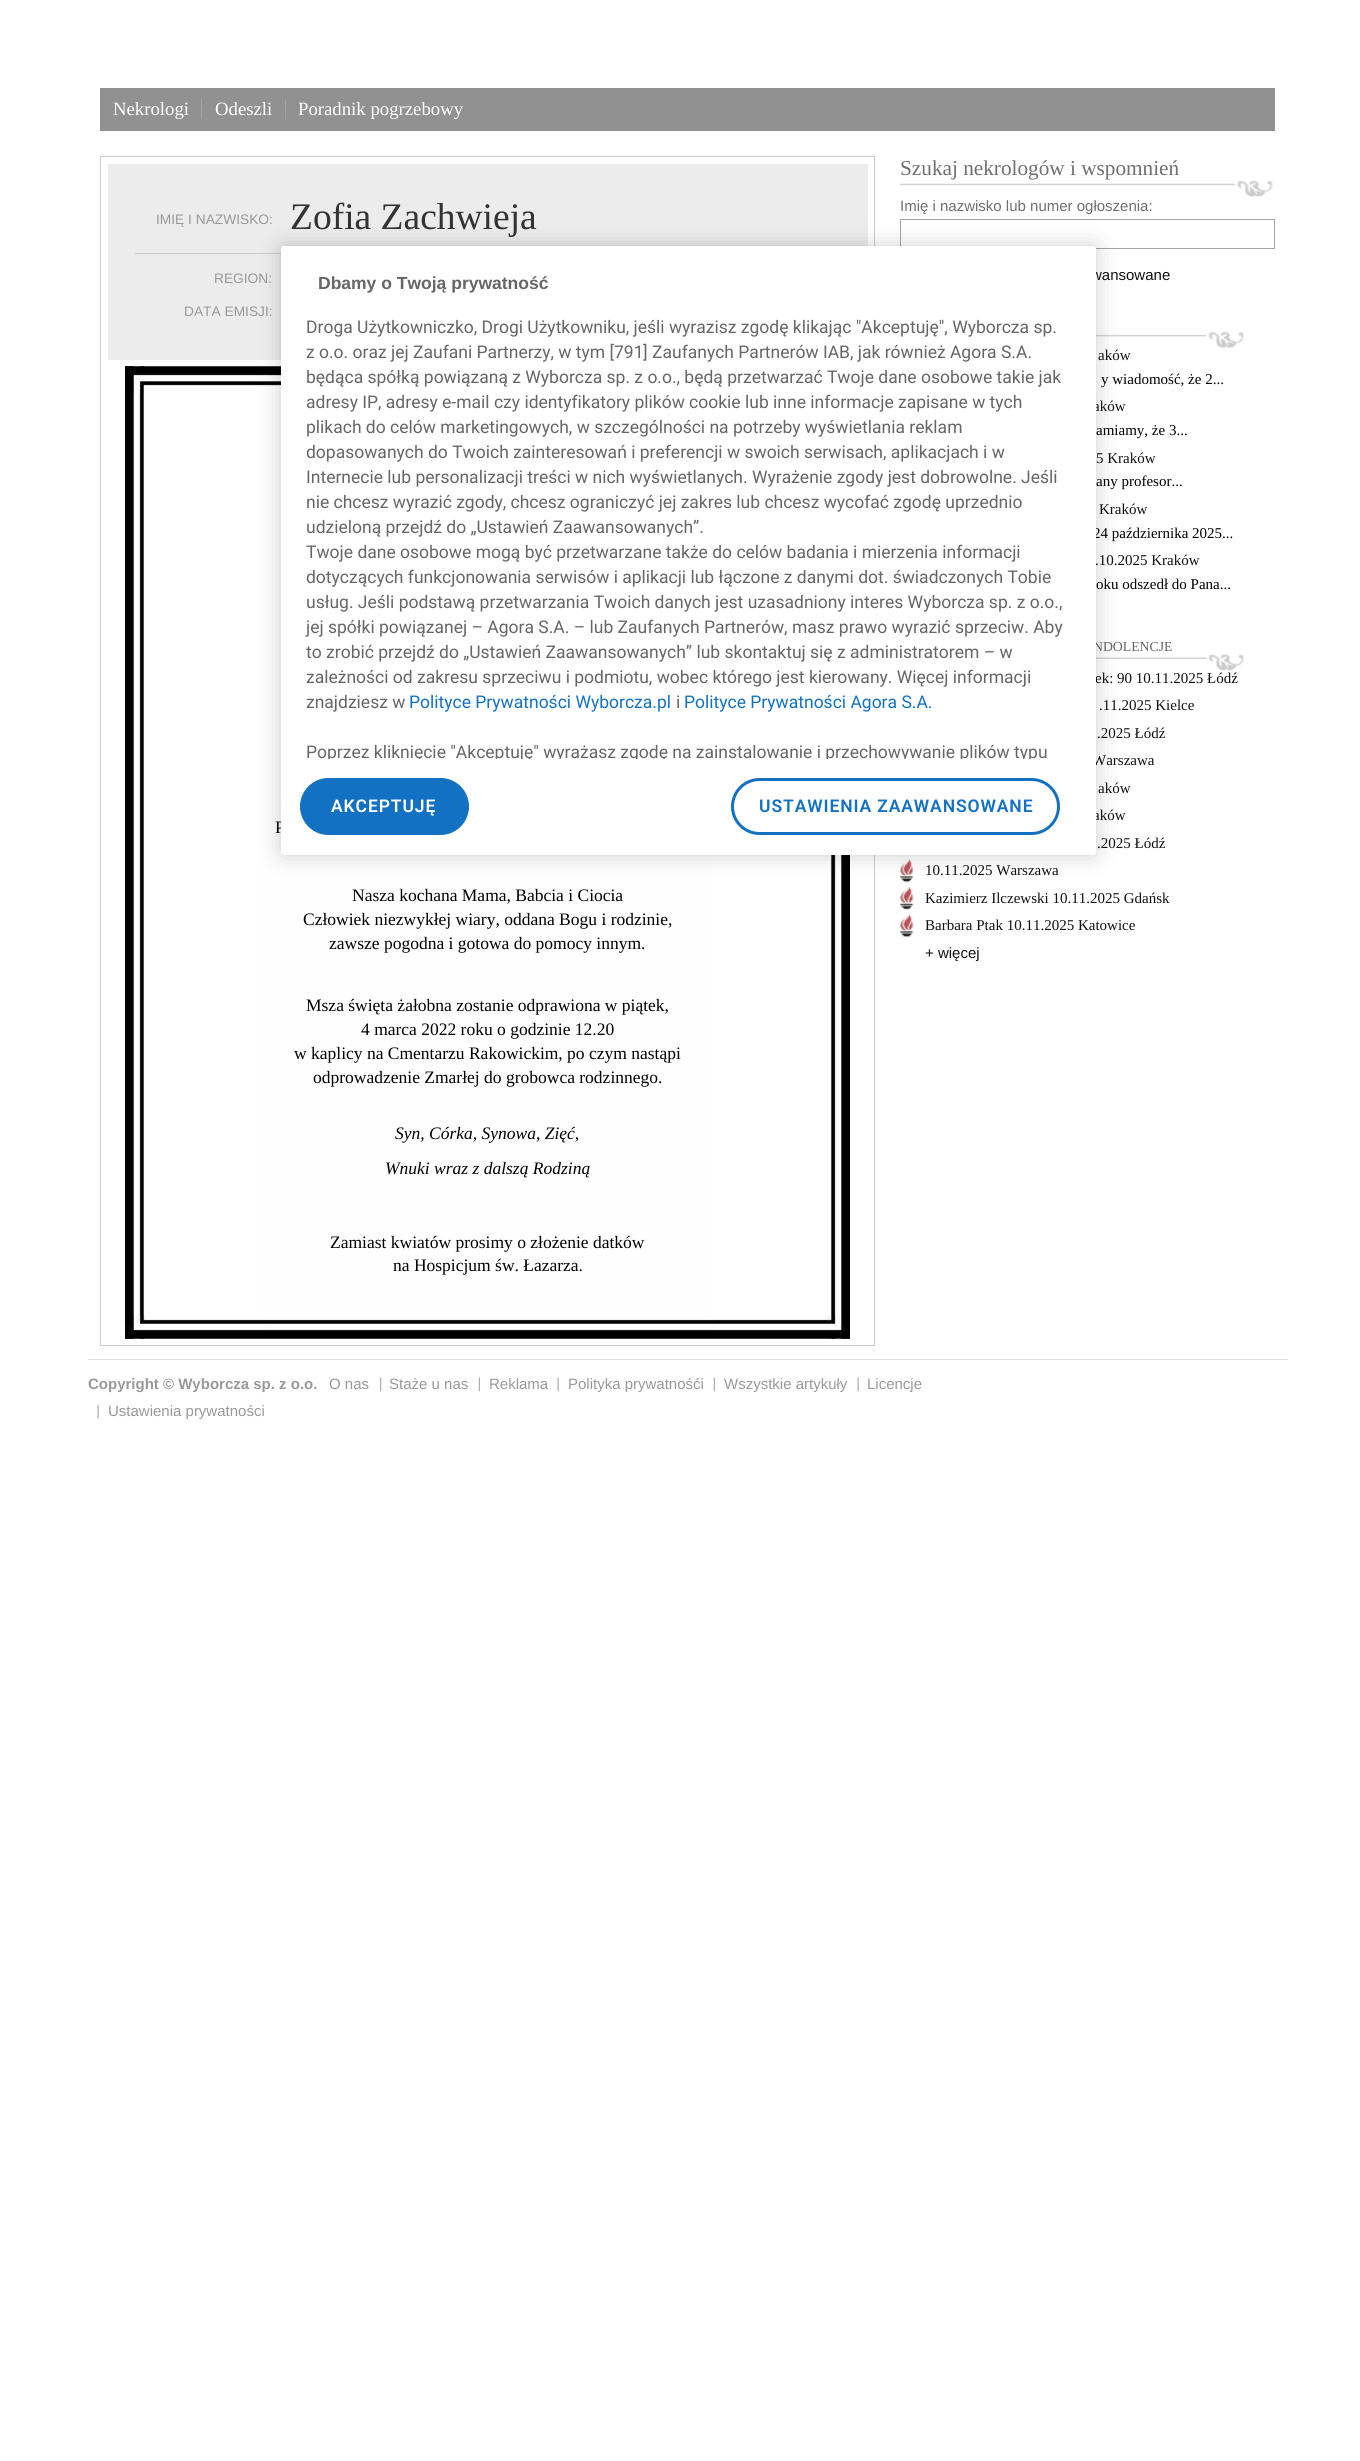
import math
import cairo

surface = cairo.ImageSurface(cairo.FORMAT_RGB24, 1360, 2461)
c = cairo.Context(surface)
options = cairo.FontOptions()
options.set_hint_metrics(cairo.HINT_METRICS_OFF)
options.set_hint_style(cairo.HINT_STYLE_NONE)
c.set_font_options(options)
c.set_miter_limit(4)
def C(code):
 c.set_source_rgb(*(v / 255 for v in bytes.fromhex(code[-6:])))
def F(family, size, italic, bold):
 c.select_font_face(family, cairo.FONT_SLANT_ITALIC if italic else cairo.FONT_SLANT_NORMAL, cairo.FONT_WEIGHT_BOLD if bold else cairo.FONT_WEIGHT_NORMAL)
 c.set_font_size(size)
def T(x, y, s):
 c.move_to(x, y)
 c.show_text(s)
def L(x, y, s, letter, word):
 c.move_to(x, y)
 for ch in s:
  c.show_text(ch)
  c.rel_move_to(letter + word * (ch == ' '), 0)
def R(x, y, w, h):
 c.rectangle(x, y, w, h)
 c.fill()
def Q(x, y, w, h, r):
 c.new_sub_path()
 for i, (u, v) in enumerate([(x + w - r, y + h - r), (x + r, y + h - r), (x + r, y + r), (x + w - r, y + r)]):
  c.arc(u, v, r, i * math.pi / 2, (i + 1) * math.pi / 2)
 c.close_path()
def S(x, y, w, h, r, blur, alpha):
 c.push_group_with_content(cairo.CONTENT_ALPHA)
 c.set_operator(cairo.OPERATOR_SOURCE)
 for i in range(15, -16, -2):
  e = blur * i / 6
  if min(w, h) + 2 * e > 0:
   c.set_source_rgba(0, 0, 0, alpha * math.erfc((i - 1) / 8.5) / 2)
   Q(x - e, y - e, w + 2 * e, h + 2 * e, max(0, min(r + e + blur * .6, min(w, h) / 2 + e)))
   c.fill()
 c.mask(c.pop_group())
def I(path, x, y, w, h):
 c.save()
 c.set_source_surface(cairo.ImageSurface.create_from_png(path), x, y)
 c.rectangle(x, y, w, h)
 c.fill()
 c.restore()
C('ffffff')
c.paint()
C('919191')
R(100,88,1175,43)
F('Liberation Serif',18.75,0,0)
C('ffffff')
T(113,115,'Nekrologi')
T(215,115,'Odeszli')
C('a1a1a1')
R(201,99,1,20)
C('ffffff')
T(298,115,'Poradnik pogrzebowy')
C('a1a1a1')
R(285,99,1,20)
c.rectangle(100.5,156.5,774,1189)
C('cccccc')
c.set_line_width(1)
c.stroke()
C('ececec')
R(108,164,760,196)
C('cccccc')
R(135,253,146,1)
F('Liberation Sans',13.75,0,0)
C('999999')
T(156,224,'IMIĘ I NAZWISKO:')
F('Liberation Serif',37.5,0,0)
C('333333')
T(290,229,'Zofia Zachwieja')
F('Liberation Sans',13.75,0,0)
C('999999')
T(214,283,'REGION:')
T(184,316,'DATA EMISJI:')
I('1.png',125,366,725,973)
I('2.png',125,366,156,28)
F('Liberation Serif',17.5,0,0)
C('000000')
T(275,833,'P')
T(352,901,'Nasza kochana Mama, Babcia i Ciocia')
T(303,925,'Człowiek niezwykłej wiary, oddana Bogu i rodzinie,')
T(329,949,'zawsze pogodna i gotowa do pomocy innym.')
T(306,1011,'Msza święta żałobna zostanie odprawiona w piątek,')
T(361,1035,'4 marca 2022 roku o godzinie 12.20')
T(294,1059,'w kaplicy na Cmentarzu Rakowickim, po czym nastąpi')
T(313,1083,'odprowadzenie Zmarłej do grobowca rodzinnego.')
F('Liberation Serif',17.5,1,0)
T(395,1139,'Syn, Córka, Synowa, Zięć,')
T(385,1174,'Wnuki wraz z dalszą Rodziną')
F('Liberation Serif',17.5,0,0)
T(330,1248,'Zamiast kwiatów prosimy o złożenie datków')
T(393,1271,'na Hospicjum św. Łazarza.')
I('3.png',125,1315,725,24)
I('4.png',900,180,373,18)
F('Liberation Serif',21.25,0,0)
C('6f6f6f')
T(900,175,'Szukaj nekrologów i wspomnień')
F('Liberation Sans',15,0,0)
T(900,211,'Imię i nazwisko lub numer ogłoszenia:')
c.rectangle(900.5,219.5,374,29)
C('a4a4a4')
c.stroke()
C('111111')
T(1091,280,'wansowane')
I('5.png',1096,331,148,18)
F('Liberation Serif',15,0,0)
T(1098,360,'aków')
C('000000')
T(1101,384,'y wiadomość, że 2...')
C('111111')
T(1093,411,'aków')
C('000000')
T(1096,435,'amiamy, że 3...')
C('111111')
T(1096,463,'5 Kraków')
C('000000')
T(1096,486,'any profesor...')
C('111111')
T(1099,514,'Kraków')
C('000000')
T(1093,538,'24 października 2025...')
C('111111')
T(1095,565,'.10.2025 Kraków')
C('000000')
T(1096,589,'oku odszedł do Pana...')
I('6.png',1096,654,148,17)
F('Liberation Serif',13.75,0,0)
C('666666')
T(1093,651,'NDOLENCJE')
F('Liberation Serif',15,0,0)
C('111111')
T(1095,683,'ek: 90 10.11.2025 Łódź')
T(1099,710,'.11.2025 Kielce')
T(1097,738,'.2025 Łódź')
T(1092,765,'Warszawa')
T(1098,793,'aków')
T(1093,820,'aków')
T(1097,848,'.2025 Łódź')
I('7.png',900,858,14,25)
T(925,875,'10.11.2025 Warszawa')
I('8.png',900,886,14,24)
T(925,903,'Kazimierz Ilczewski 10.11.2025 Gdańsk')
I('7.png',900,913,14,25)
T(925,930,'Barbara Ptak 10.11.2025 Katowice')
F('Liberation Sans',15,0,0)
T(925,958,'+ więcej')
C('000000')
S(281,246,815,609,3,11,.2)
C('ffffff')
Q(281,246,815,609,3)
c.fill()
F('Liberation Sans',17.5,0,1)
C('666666')
T(318,289,'Dbamy o Twoją prywatność')
F('Roboto',17.5,0,0)
T(306,333,'Droga Użytkowniczko, Drogi Użytkowniku, jeśli wyrazisz zgodę klikając "Akceptuję", Wyborcza sp.')
T(306,358,'z o.o. oraz jej Zaufani Partnerzy, w tym [')
T(614,358,'791')
T(643,358,'] Zaufanych Partnerów IAB, jak również Agora S.A.')
T(306,383,'będąca spółką powiązaną z Wyborcza sp. z o.o., będą przetwarzać Twoje dane osobowe takie jak')
T(306,408,'adresy IP, adresy e-mail czy identyfikatory plików cookie lub inne informacje zapisane w tych')
T(306,433,'plikach do celów marketingowych, w szczególności na potrzeby wyświetlania reklam')
T(306,458,'dopasowanych do Twoich zainteresowań i preferencji w swoich serwisach, aplikacjach i w')
T(306,483,'Internecie lub personalizacji treści w nich wyświetlanych. Wyrażenie zgody jest dobrowolne. Jeśli')
T(306,508,'nie chcesz wyrazić zgody, chcesz ograniczyć jej zakres lub chcesz wycofać zgodę uprzednio')
T(306,533,'udzieloną przejdź do „Ustawień Zaawansowanych”.')
T(306,558,'Twoje dane osobowe mogą być przetwarzane także do celów badania i mierzenia informacji')
T(306,583,'dotyczących funkcjonowania serwisów i aplikacji lub łączone z danymi dot. świadczonych Tobie')
T(306,608,'usług. Jeśli podstawą przetwarzania Twoich danych jest uzasadniony interes Wyborcza sp. z o.o.,')
T(306,633,'jej spółki powiązanej – Agora S.A. – lub Zaufanych Partnerów, masz prawo wyrazić sprzeciw. Aby')
T(306,658,'to zrobić przejdź do „Ustawień Zaawansowanych” lub skontaktuj się z administratorem – w')
T(306,683,'zależności od zakresu sprzeciwu i podmiotu, wobec którego jest kierowany. Więcej informacji')
T(306,708,'znajdziesz w')
C('1371c3')
T(409,708,'Polityce Prywatności Wyborcza.pl')
C('666666')
T(676,708,'i')
C('1371c3')
T(684,708,'Polityce Prywatności Agora S.A.')
c.save()
c.rectangle(281,271,812,488)
c.clip()
C('666666')
T(306,758,'Poprzez kliknięcie "Akceptuję" wyrażasz zgodę na zainstalowanie i przechowywanie plików typu')
c.restore()
Q(300.5,778.5,168,56,28)
c.fill_preserve()
c.stroke()
F('Roboto SemiBold',17.5,0,0)
C('ffffff')
L(331,812,'AKCEPTUJĘ',.9,0)
Q(732.5,779.5,326,54,27)
C('1371c3')
c.set_line_width(3)
c.stroke()
L(759,812,'USTAWIENIA ZAAWANSOWANE',.9,0)
C('e0e0e0')
R(88,1359,1200,1)
F('Liberation Sans',15,0,1)
C('999999')
T(88,1389,'Copyright © Wyborcza sp. z o.o.')
F('Liberation Sans',15,0,0)
T(329,1389,'O nas')
I('9.png',380,1377,2,15)
T(389,1389,'Staże u nas')
I('10.png',478,1377,2,15)
T(489,1389,'Reklama')
I('11.png',557,1377,2,15)
T(568,1389,'Polityka prywatnośći')
I('10.png',713,1377,2,15)
T(724,1389,'Wszystkie artykuły')
I('11.png',857,1377,2,15)
T(867,1389,'Licencje')
I('12.png',97,1405,2,14)
T(108,1416,'Ustawienia prywatności')
surface.write_to_png('o.png')
